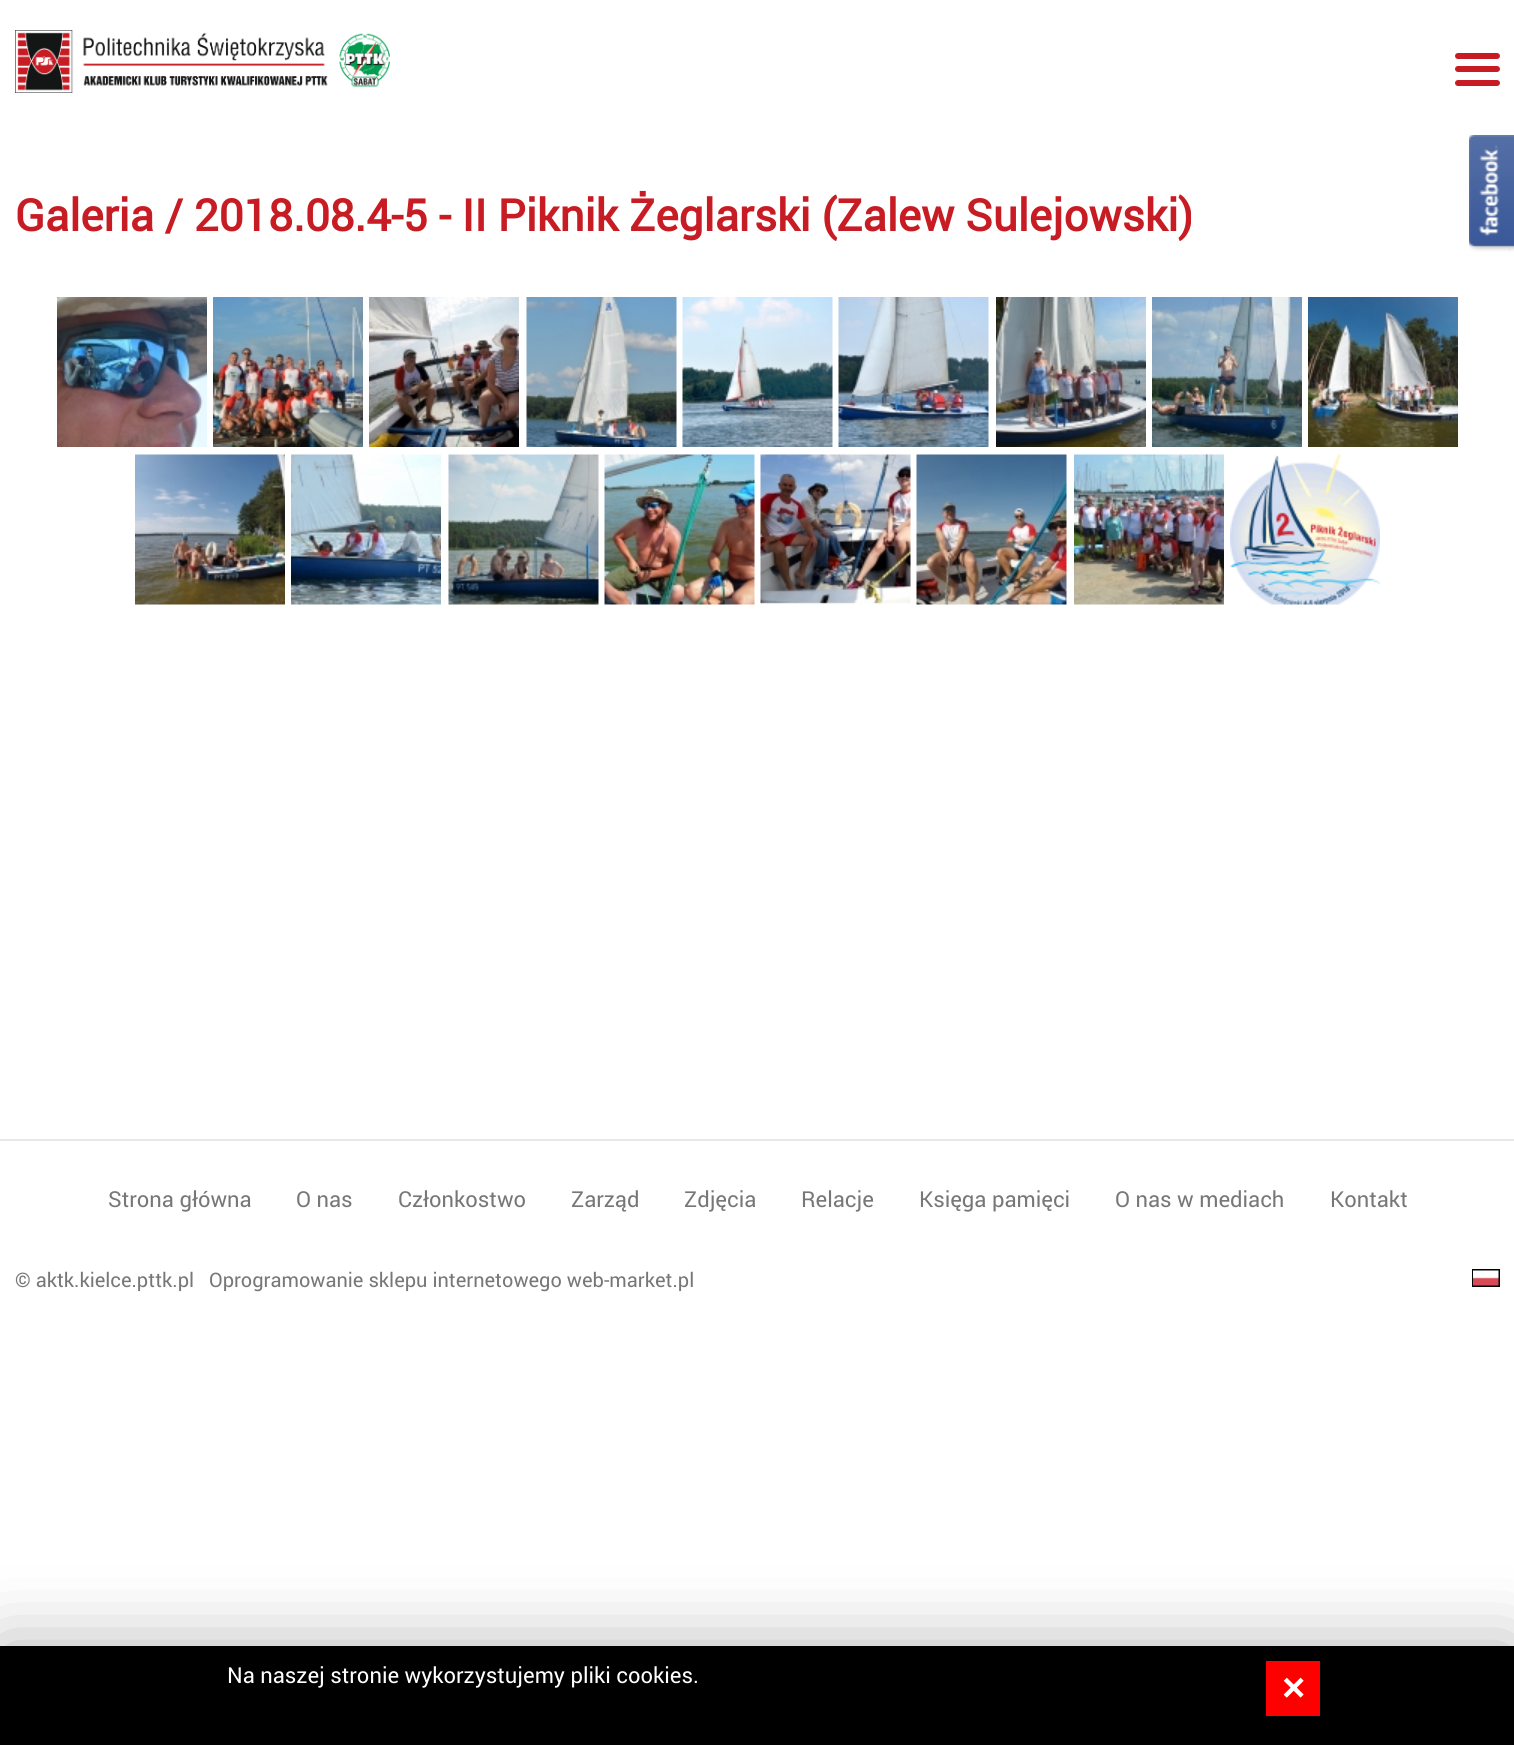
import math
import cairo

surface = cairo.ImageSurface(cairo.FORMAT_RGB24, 1514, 1745)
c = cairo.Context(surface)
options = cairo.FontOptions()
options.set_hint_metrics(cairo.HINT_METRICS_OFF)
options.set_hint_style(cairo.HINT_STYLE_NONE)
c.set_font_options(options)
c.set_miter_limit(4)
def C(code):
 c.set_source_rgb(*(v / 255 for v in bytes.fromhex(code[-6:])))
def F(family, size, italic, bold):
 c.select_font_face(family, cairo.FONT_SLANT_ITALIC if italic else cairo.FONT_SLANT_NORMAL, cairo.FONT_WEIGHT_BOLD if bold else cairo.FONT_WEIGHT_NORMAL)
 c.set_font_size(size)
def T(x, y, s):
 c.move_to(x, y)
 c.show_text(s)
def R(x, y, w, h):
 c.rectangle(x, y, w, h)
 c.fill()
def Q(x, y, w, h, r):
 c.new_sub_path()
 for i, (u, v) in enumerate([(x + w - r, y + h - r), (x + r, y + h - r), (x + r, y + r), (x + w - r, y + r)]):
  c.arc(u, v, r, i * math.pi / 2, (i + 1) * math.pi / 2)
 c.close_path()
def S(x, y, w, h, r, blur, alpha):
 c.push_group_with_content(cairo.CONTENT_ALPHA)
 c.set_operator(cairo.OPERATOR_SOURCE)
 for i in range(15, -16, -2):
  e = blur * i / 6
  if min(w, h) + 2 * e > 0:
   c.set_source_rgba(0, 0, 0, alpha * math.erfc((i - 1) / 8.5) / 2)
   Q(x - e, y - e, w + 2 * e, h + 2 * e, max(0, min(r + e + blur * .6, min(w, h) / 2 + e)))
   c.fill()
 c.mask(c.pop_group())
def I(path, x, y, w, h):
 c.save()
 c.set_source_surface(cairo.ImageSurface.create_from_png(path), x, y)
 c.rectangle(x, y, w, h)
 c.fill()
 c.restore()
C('ffffff')
c.paint()
I('1.png',15,30,375,63)
C('c81c24')
Q(1455,53,45,6,3)
c.fill()
Q(1455,66,45,6,3)
c.fill()
Q(1455,80,45,6,3)
c.fill()
F('Roboto',44,0,1)
T(15,231,'Galeria / 2018.08.4-5 - II Piknik Żeglarski (Zalew Sulejowski)')
I('2.png',57,297,150,150)
I('3.png',213,297,150,150)
I('4.png',369,297,150,150)
I('5.png',526,297,151,150)
I('6.png',682,297,151,150)
I('7.png',838,297,151,150)
I('8.png',996,297,150,150)
I('9.png',1152,297,150,150)
I('10.png',1308,297,150,150)
I('11.png',135,454,150,151)
I('12.png',291,454,150,151)
I('13.png',448,454,151,151)
I('14.png',604,454,151,151)
I('15.png',760,454,151,151)
I('16.png',916,454,151,151)
I('17.png',1074,454,150,151)
I('18.png',1230,454,150,151)
C('e8e8e8')
R(0,1139,1514,2)
I('19.png',1469,135,45,117)
F('Roboto',22,0,0)
C('777777')
T(108,1207,'Strona główna')
T(296,1207,'O nas')
T(398,1207,'Członkostwo')
T(571,1207,'Zarząd')
T(684,1207,'Zdjęcia')
T(801,1207,'Relacje')
T(919,1207,'Księga pamięci')
T(1115,1207,'O nas w mediach')
T(1330,1207,'Kontakt')
F('Roboto',20,0,0)
T(15,1287,'© aktk.kielce.pttk.pl')
T(209,1287,'Oprogramowanie sklepu internetowego web-market.pl')
c.rectangle(1473,1270,26,16)
C('000000')
c.stroke()
I('20.png',1473,1270,26,16)
C('000000')
S(0,1646,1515,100,0,37.5,.3)
C('000000')
R(0,1646,1514,99)
F('Roboto',22,0,0)
C('ffffff')
T(227,1683,'Na naszej stronie wykorzystujemy pliki cookies.')
C('ff0000')
R(1266,1661,54,55)
F('Liberation Sans',40,0,1)
C('ffffff')
T(1282,1701,'×')
surface.write_to_png('o.png')
